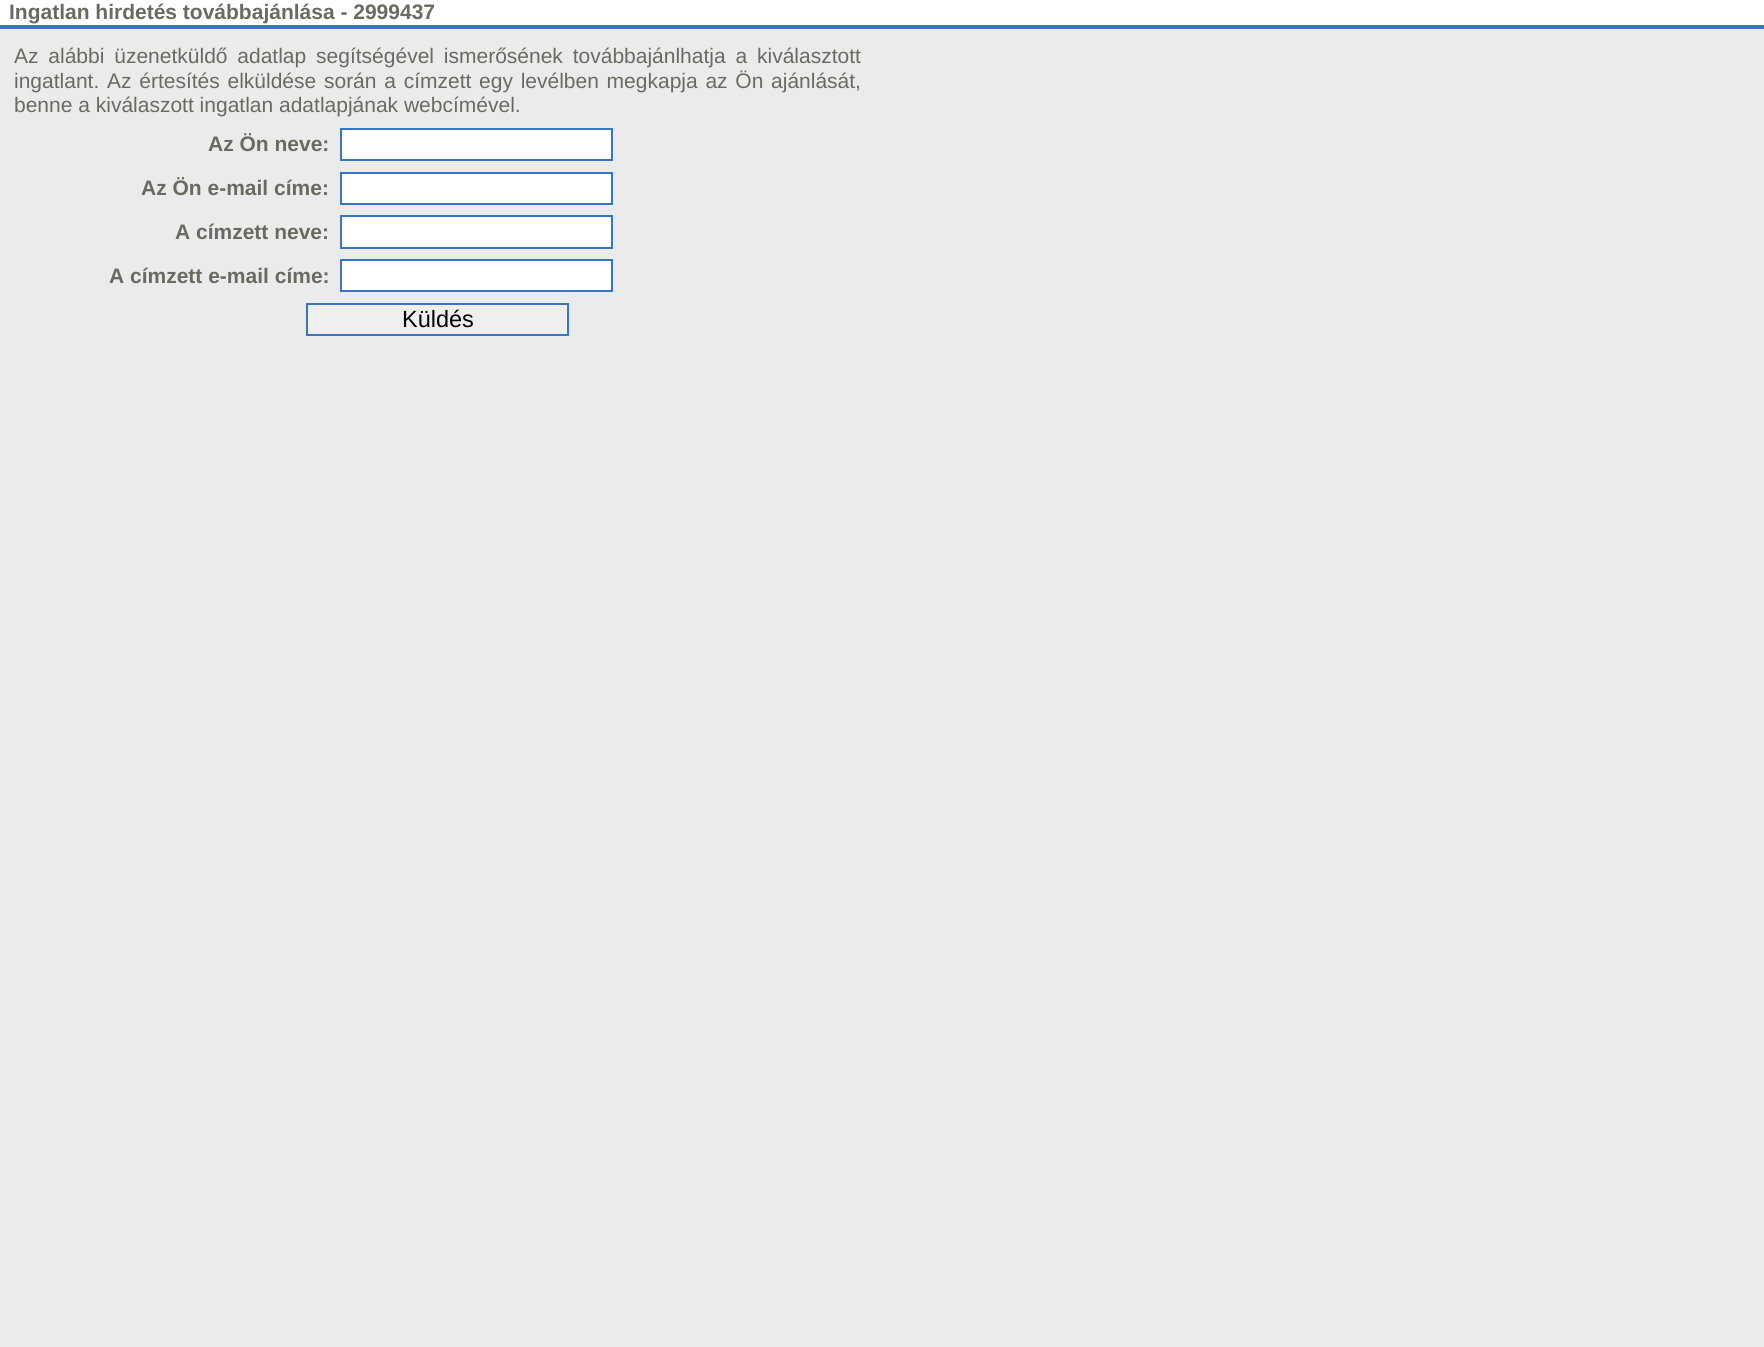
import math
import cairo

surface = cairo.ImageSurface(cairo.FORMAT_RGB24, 1764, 1347)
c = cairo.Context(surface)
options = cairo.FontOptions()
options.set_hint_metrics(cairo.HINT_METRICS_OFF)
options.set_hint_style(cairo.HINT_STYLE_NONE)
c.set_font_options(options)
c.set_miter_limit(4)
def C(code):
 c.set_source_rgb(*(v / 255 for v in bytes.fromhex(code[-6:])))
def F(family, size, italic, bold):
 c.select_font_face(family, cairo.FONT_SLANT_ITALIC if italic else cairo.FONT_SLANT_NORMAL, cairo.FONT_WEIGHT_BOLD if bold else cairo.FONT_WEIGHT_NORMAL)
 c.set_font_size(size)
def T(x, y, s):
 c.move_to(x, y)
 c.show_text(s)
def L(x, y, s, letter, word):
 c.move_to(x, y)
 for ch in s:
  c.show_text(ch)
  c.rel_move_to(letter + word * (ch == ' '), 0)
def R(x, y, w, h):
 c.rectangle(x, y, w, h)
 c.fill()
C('ebebeb')
c.paint()
C('ffffff')
R(0,0,1764,25)
C('3776c5')
R(0,25,1764,4)
F('Liberation Sans',21,0,1)
C('696b62')
T(9,19,'Ingatlan hirdetés továbbajánlása - 2999437')
F('Liberation Sans',21,0,0)
L(14,63,'Az alábbi üzenetküldő adatlap segítségével ismerősének továbbajánlhatja a kiválasztott',0,4)
L(14,88,'ingatlant. Az értesítés elküldése során a címzett egy levélben megkapja az Ön ajánlását,',0,1.9)
T(14,112,'benne a kiválaszott ingatlan adatlapjának webcímével.')
F('Liberation Sans',21,0,1)
T(208,151,'Az Ön neve:')
C('ffffff')
c.rectangle(341,129,271,31)
c.fill_preserve()
C('3776c5')
c.stroke()
C('696b62')
T(141,195,'Az Ön e-mail címe:')
C('ffffff')
c.rectangle(341,173,271,31)
c.fill_preserve()
C('3776c5')
c.stroke()
C('696b62')
T(175,239,'A címzett neve:')
C('ffffff')
c.rectangle(341,216,271,32)
c.fill_preserve()
C('3776c5')
c.stroke()
C('696b62')
T(109,283,'A címzett e-mail címe:')
C('ffffff')
c.rectangle(341,260,271,31)
c.fill_preserve()
C('3776c5')
c.stroke()
C('efefef')
c.rectangle(307,304,261,31)
c.fill_preserve()
C('3776c5')
c.stroke()
F('Liberation Sans',23.5,0,0)
C('000000')
T(402,327,'Küldés')
surface.write_to_png('o.png')
